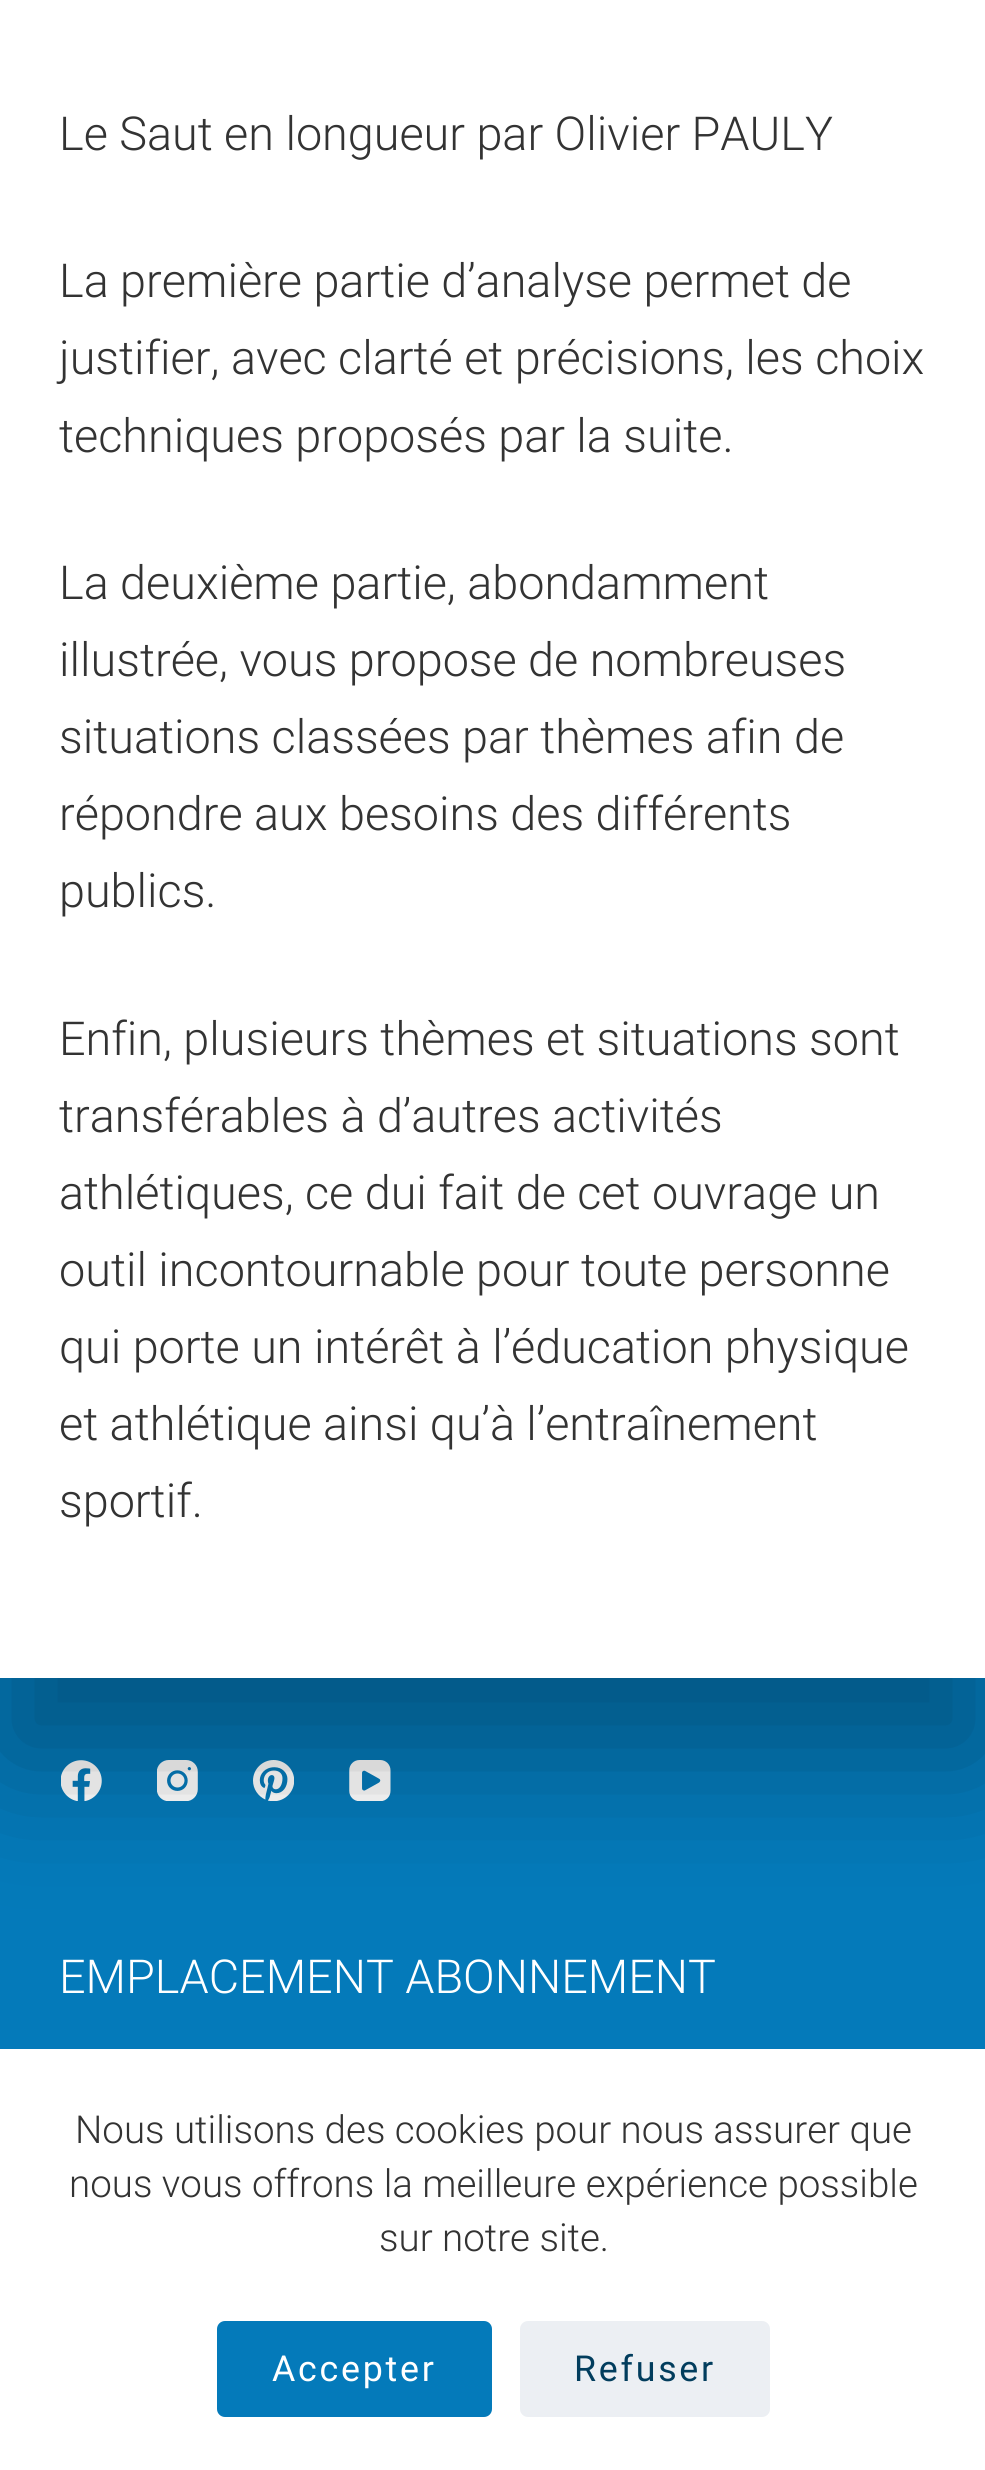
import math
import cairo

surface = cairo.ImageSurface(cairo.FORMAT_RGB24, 985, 2470)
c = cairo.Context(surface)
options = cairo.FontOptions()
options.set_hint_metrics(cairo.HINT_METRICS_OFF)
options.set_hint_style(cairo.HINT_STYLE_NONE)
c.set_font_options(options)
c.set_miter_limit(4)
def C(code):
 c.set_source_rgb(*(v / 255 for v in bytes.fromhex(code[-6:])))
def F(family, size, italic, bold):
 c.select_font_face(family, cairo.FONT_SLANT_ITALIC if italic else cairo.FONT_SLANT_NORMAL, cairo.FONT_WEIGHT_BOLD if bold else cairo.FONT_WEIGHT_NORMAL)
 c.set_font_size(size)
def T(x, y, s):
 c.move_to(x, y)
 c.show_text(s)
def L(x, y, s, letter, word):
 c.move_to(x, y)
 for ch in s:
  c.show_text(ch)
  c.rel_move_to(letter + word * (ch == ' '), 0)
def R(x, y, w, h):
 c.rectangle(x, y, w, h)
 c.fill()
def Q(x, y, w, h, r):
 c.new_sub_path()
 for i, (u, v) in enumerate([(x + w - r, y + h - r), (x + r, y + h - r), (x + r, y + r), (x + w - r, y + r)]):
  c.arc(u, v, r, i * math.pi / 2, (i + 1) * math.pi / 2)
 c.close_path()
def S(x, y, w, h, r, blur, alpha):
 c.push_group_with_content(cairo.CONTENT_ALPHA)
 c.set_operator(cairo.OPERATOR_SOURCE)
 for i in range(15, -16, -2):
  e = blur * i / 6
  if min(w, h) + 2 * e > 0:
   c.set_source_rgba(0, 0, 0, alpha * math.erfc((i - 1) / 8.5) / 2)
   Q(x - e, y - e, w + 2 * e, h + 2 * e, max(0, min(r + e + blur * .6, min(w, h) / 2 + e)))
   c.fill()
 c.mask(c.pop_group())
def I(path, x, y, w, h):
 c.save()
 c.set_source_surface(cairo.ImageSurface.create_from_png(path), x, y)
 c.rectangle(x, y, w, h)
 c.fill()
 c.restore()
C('047aba')
c.paint()
I('1.png',61,1760,41,41)
I('2.png',157,1760,41,41)
I('3.png',253,1760,41,41)
I('4.png',349,1760,42,41)
C('000000')
S(0,-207,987,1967,0,69,.3)
C('ffffff')
R(0,0,985,1678)
F('Roboto Light',46.75,0,0)
C('333333')
T(59,150,'Le Saut en longueur par Olivier PAULY')
T(59,297,'La première partie d’analyse permet de')
T(59,374,'justifier, avec clarté et précisions, les choix')
T(59,452,'techniques proposés par la suite.')
T(59,599,'La deuxième partie, abondamment')
T(59,676,'illustrée, vous propose de nombreuses')
T(59,753,'situations classées par thèmes afin de')
T(59,830,'répondre aux besoins des différents')
T(59,907,'publics.')
T(59,1055,'Enfin, plusieurs thèmes et situations sont')
T(59,1132,'transférables à d’autres activités')
T(59,1209,'athlétiques, ce dui fait de cet ouvrage un')
T(59,1286,'outil incontournable pour toute personne')
T(59,1363,'qui porte un intérêt à l’éducation physique')
T(59,1440,'et athlétique ainsi qu’à l’entraînement')
T(59,1517,'sportif.')
C('ffffff')
T(59,1993,'EMPLACEMENT ABONNEMENT')
R(0,2049,985,421)
F('Roboto Light',38.5,0,0)
C('333333')
T(75,2143,'Nous utilisons des cookies pour nous assurer que')
T(69,2197,'nous vous offrons la meilleure expérience possible')
T(379,2251,'sur notre site.')
C('047aba')
Q(217,2321,275,96,8)
c.fill()
F('Roboto',35.75,0,0)
C('ffffff')
L(272,2381,'Accepter',2.75,0)
C('eceff3')
Q(520,2321,250,96,8)
c.fill()
C('023d5d')
L(574,2381,'Refuser',2.75,0)
surface.write_to_png('o.png')
